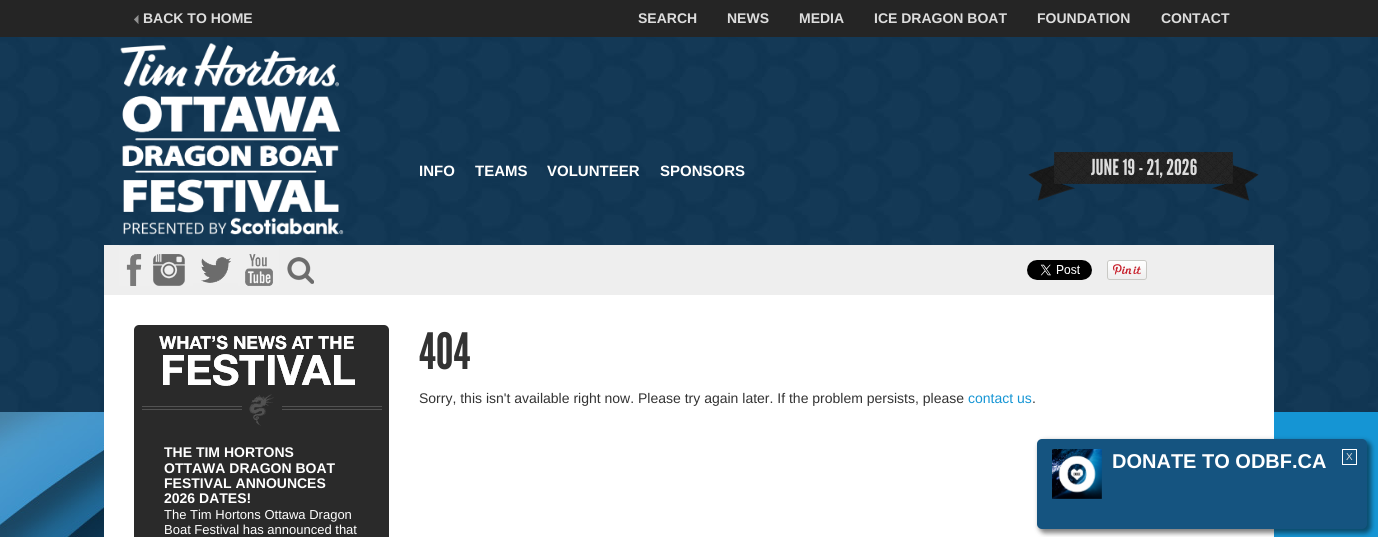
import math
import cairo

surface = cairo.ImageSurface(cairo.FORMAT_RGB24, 1378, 537)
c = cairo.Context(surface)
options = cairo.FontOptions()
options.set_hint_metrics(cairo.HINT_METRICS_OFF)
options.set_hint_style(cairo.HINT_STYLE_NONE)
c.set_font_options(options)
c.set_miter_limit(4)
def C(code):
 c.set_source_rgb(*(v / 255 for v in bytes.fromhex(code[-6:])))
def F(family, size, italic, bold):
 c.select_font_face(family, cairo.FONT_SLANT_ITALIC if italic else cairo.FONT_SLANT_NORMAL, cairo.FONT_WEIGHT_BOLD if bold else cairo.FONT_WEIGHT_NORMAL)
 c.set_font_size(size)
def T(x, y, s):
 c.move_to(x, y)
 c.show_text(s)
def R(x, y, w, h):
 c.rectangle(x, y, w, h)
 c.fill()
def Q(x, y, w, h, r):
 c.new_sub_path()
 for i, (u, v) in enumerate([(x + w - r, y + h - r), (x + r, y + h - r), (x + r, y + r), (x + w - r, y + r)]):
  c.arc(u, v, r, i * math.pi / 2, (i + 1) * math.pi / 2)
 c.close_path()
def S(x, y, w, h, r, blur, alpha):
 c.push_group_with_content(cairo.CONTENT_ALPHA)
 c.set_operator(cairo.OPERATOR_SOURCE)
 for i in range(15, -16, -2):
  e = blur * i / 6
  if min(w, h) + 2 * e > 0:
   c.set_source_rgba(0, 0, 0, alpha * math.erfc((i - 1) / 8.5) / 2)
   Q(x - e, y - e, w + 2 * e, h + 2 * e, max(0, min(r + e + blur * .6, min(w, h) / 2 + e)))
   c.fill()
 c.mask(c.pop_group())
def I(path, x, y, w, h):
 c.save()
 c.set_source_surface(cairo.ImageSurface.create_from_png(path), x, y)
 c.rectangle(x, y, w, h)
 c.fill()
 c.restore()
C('252525')
c.paint()
I('1.png',134,15,5,9)
F('Liberation Sans',14,0,1)
C('dddddd')
T(143,23,'BACK TO HOME')
T(638,23,'SEARCH')
T(727,23,'NEWS')
T(799,23,'MEDIA')
T(874,23,'ICE DRAGON BOAT')
T(1037,23,'FOUNDATION')
T(1161,23,'CONTACT')
I('2.png',0,37,1378,375)
I('3.png',0,412,1378,125)
I('4.png',120,43,224,192)
F('Liberation Sans',15,0,1)
C('ffffff')
T(419,176,'INFO')
T(475,176,'TEAMS')
T(547,176,'VOLUNTEER')
T(660,176,'SPONSORS')
I('5.png',1028,152,231,49)
F('League Gothic',22,0,0)
C('dddddd')
T(1091,175,'JUNE 19 - 21, 2026')
C('eeeeee')
R(104,245,1170,50)
I('6.png',119,245,29,41)
I('7.png',148,245,45,41)
I('8.png',193,245,45,38)
I('9.png',238,245,41,41)
I('10.png',287,257,27,27)
I('11.png',1027,260,65,20)
I('12.png',1107,260,40,20)
C('ffffff')
R(104,295,1170,242)
F('League Gothic',50,0,0)
C('333333')
T(419,369,'404')
F('Liberation Sans',14,0,0)
T(419,403,'Sorry, this isn\'t available right now. Please try again later. If the problem persists, please')
C('1595d4')
T(968,403,'contact us')
C('333333')
T(1032,403,'.')
C('2a2a2a')
Q(134,325,255,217,5)
c.fill()
I('13.png',142,335,240,91)
F('Liberation Sans',14,0,1)
C('ffffff')
T(164,457,'THE TIM HORTONS')
T(164,473,'OTTAWA DRAGON BOAT')
T(164,488,'FESTIVAL ANNOUNCES')
T(164,503,'2026 DATES!')
F('Liberation Sans',13,0,0)
T(164,519,'The Tim Hortons Ottawa Dragon')
T(164,534,'Boat Festival has announced that')
C('000000')
S(1039,441,332,92,6,2.5,.5)
C('155480')
Q(1037,439,330,90,5)
c.fill()
I('14.png',1052,449,50,50)
F('Liberation Sans',20,0,1)
C('ffffff')
T(1112,468,'DONATE TO ODBF.CA')
c.rectangle(1342.5,449.5,14,15)
c.set_line_width(1)
c.stroke()
F('Liberation Sans',10,0,0)
C('dddddd')
T(1346,460,'X')
surface.write_to_png('o.png')
